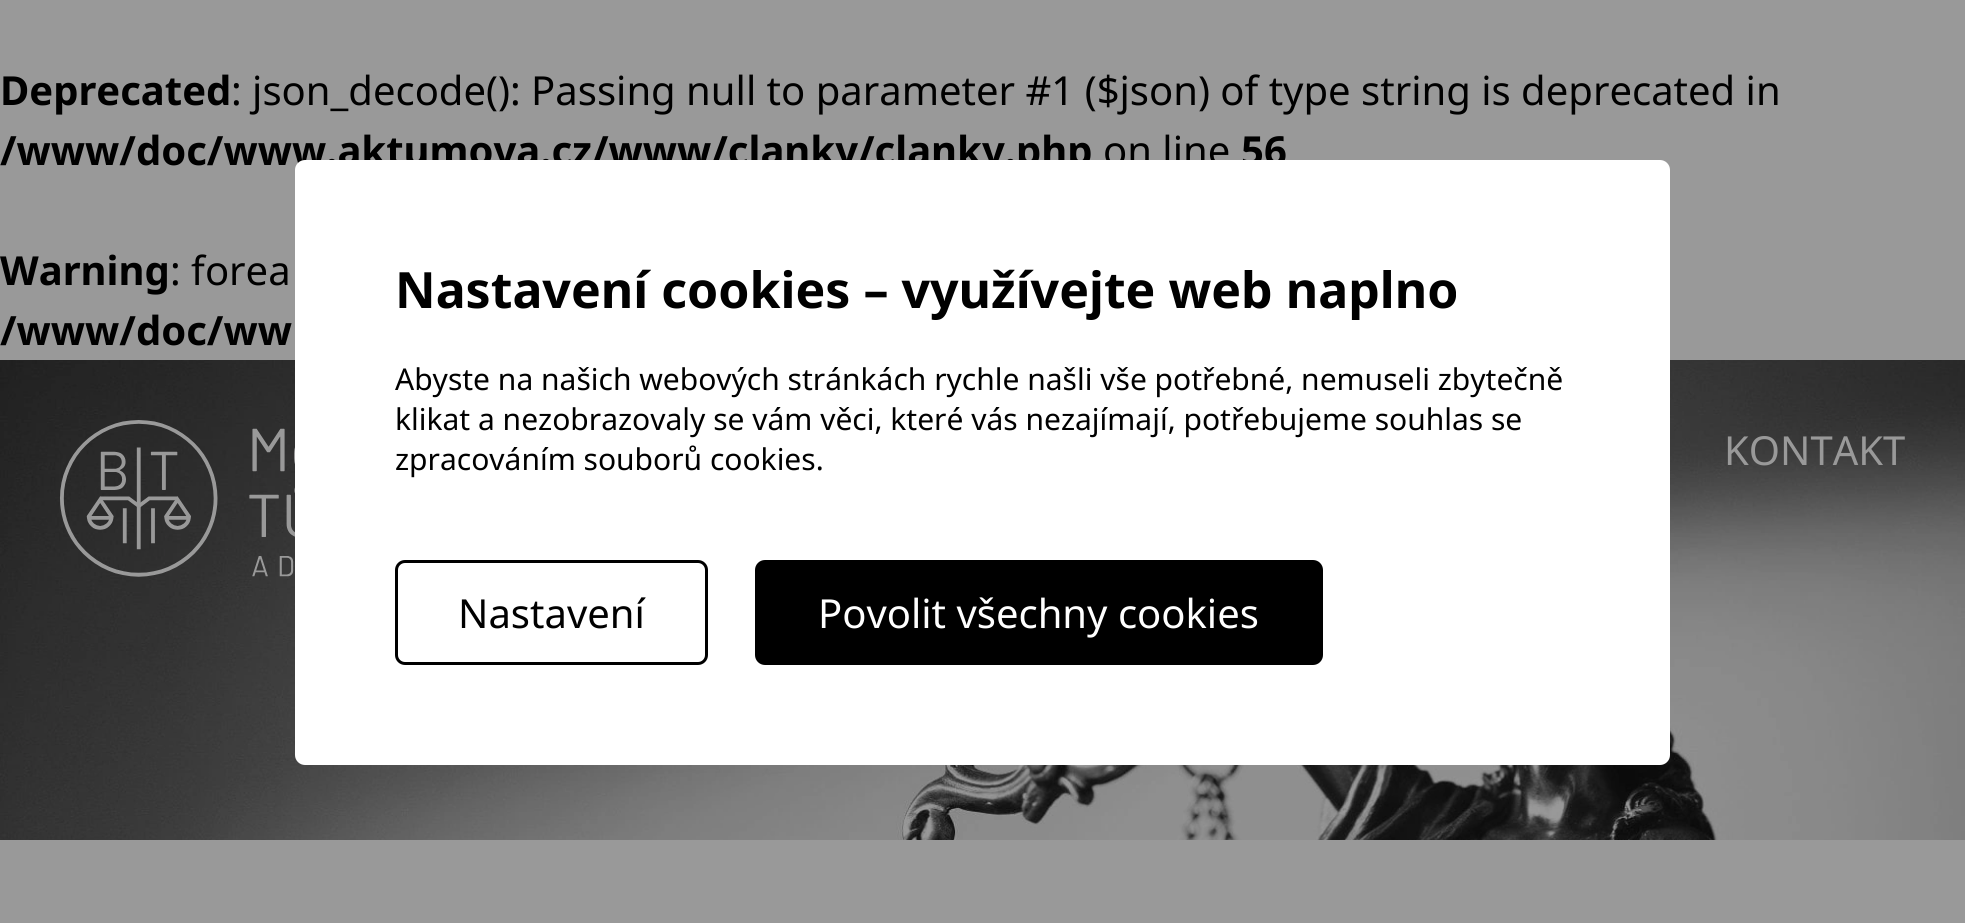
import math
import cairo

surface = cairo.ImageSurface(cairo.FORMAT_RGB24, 1965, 923)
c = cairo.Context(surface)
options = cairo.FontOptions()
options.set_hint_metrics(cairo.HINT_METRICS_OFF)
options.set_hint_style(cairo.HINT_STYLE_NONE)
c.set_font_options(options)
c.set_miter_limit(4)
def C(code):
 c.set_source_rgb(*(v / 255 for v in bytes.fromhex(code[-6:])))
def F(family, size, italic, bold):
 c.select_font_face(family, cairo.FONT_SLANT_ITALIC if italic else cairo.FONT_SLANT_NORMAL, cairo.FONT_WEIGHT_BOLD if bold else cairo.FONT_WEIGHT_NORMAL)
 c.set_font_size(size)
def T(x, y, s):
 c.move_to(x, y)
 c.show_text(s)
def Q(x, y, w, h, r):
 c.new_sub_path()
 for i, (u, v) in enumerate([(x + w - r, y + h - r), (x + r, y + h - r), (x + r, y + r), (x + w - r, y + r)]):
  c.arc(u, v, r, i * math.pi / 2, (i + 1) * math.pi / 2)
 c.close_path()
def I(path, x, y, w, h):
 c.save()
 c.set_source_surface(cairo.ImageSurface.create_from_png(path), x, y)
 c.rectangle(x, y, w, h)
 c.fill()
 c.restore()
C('999999')
c.paint()
F('Noto Sans',40,0,1)
C('000000')
T(0,105,'Deprecated')
F('Noto Sans',40,0,0)
T(231,105,': json_decode(): Passing null to parameter #1 ($json) of type string is deprecated in')
F('Noto Sans',40,0,1)
T(0,165,'/www/doc/www.aktumova.cz/www/clanky/clanky.php')
F('Noto Sans',40,0,0)
T(1103,165,'on line')
F('Noto Sans',40,0,1)
T(1241,165,'56')
T(0,285,'Warning')
F('Noto Sans',40,0,0)
T(170,285,': forea')
I('1.png',0,360,1965,480)
C('ffffff')
Q(295,160,1375,605,10)
c.fill()
F('Noto Sans',50,0,1)
C('000000')
T(395,308,'Nastavení cookies – využívejte web naplno')
F('Noto Sans',30,0,0)
T(395,390,'Abyste na našich webových stránkách rychle našli vše potřebné, nemuseli zbytečně')
T(395,430,'klikat a nezobrazovaly se vám věci, které vás nezajímají, potřebujeme souhlas se')
T(395,470,'zpracováním souborů cookies.')
Q(396.5,561.5,310,102,8.5)
c.set_line_width(3)
c.stroke()
F('Noto Sans',40,0,0)
T(458,628,'Nastavení')
Q(756.5,561.5,565,102,8.5)
c.fill_preserve()
c.stroke()
C('ffffff')
T(818,628,'Povolit všechny cookies')
F('Noto Sans',40,0,1)
C('000000')
T(0,345,'/www/doc/ww')
I('2.png',60,420,235,157)
F('Noto Sans',40,0,0)
C('999999')
T(1724,465,'KONTAKT')
surface.write_to_png('o.png')
